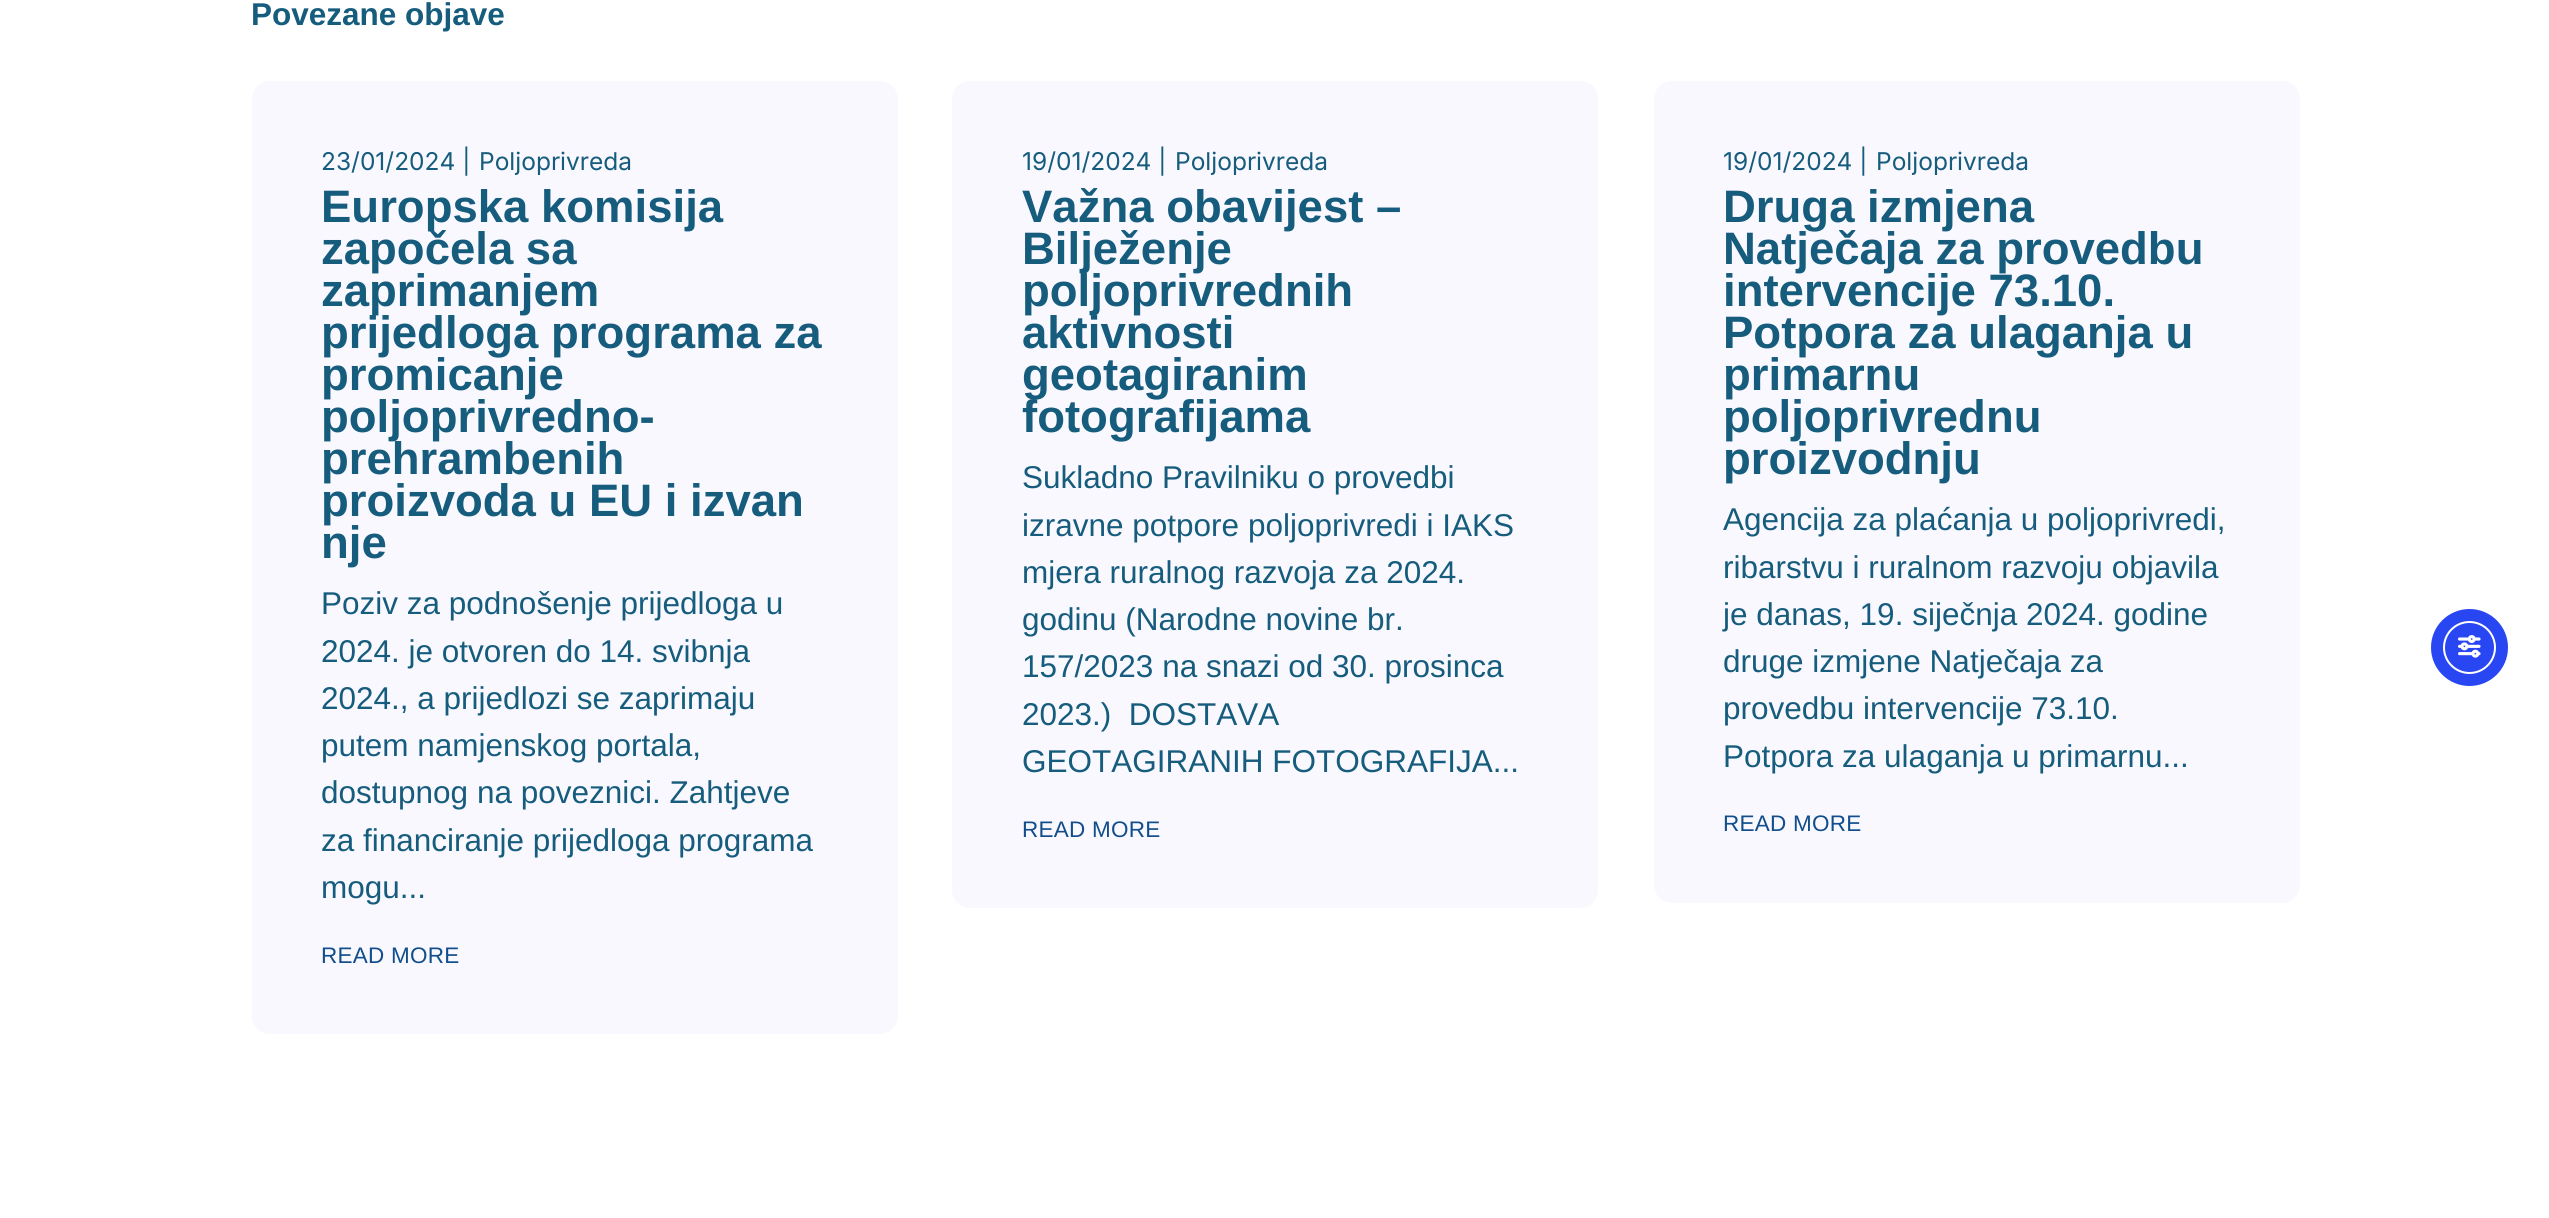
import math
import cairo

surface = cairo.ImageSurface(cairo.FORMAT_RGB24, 2549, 1218)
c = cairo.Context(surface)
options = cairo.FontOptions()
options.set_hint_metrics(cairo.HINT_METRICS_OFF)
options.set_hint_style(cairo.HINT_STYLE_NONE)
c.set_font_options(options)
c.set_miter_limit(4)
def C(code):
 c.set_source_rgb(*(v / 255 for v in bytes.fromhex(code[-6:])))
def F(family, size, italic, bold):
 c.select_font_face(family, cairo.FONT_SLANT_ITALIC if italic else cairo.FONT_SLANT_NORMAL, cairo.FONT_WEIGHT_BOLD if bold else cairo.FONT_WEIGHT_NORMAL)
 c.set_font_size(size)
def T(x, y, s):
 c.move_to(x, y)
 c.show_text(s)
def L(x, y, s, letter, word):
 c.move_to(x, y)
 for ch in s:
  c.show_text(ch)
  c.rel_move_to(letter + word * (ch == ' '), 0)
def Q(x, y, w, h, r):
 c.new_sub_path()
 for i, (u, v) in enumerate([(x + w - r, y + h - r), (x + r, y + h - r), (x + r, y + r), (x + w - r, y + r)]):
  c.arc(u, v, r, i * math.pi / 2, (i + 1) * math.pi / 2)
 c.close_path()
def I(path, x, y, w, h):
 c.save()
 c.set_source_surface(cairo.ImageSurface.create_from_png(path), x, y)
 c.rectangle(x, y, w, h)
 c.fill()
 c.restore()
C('ffffff')
c.paint()
F('Liberation Sans',31.5,0,1)
C('165c7d')
T(251,25,'Povezane objave')
C('f9f8ff')
Q(252,81,646,953,18)
c.fill()
F('Inter',24.5,0,0)
C('165c7d')
T(321,170,'23/01/2024 |')
T(479,170,'Poljoprivreda')
F('Liberation Sans',45.5,0,1)
T(321,222,'Europska komisija')
T(321,264,'započela sa')
T(321,306,'zaprimanjem')
T(321,348,'prijedloga programa za')
T(321,390,'promicanje')
T(321,432,'poljoprivredno-')
T(321,474,'prehrambenih')
T(321,516,'proizvoda u EU i izvan')
T(321,558,'nje')
F('Liberation Sans',31.5,0,0)
T(321,614,'Poziv za podnošenje prijedloga u')
T(321,662,'2024. je otvoren do 14. svibnja')
T(321,709,'2024., a prijedlozi se zaprimaju')
T(321,756,'putem namjenskog portala,')
T(321,803,'dostupnog na poveznici. Zahtjeve')
T(321,851,'za financiranje prijedloga programa')
T(321,898,'mogu...')
F('Liberation Sans',22.5,0,0)
C('124e8c')
L(321,963,'READ MORE',.25,0)
C('f9f8ff')
Q(952,81,646,827,18)
c.fill()
F('Inter',24.5,0,0)
C('165c7d')
T(1022,170,'19/01/2024 |')
T(1175,170,'Poljoprivreda')
F('Liberation Sans',45.5,0,1)
T(1022,222,'Važna obavijest –')
T(1022,264,'Bilježenje')
T(1022,306,'poljoprivrednih')
T(1022,348,'aktivnosti')
T(1022,390,'geotagiranim')
T(1022,432,'fotografijama')
F('Liberation Sans',31.5,0,0)
T(1022,488,'Sukladno Pravilniku o provedbi')
T(1022,536,'izravne potpore poljoprivredi i IAKS')
T(1022,583,'mjera ruralnog razvoja za 2024.')
T(1022,630,'godinu (Narodne novine br.')
T(1022,677,'157/2023 na snazi od 30. prosinca')
T(1022,725,'2023.)  DOSTAVA')
T(1022,772,'GEOTAGIRANIH FOTOGRAFIJA...')
F('Liberation Sans',22.5,0,0)
C('124e8c')
L(1022,837,'READ MORE',.25,0)
C('f9f8ff')
Q(1654,81,646,822,18)
c.fill()
F('Inter',24.5,0,0)
C('165c7d')
T(1723,170,'19/01/2024 |')
T(1876,170,'Poljoprivreda')
F('Liberation Sans',45.5,0,1)
T(1723,222,'Druga izmjena')
T(1723,264,'Natječaja za provedbu')
T(1723,306,'intervencije 73.10.')
T(1723,348,'Potpora za ulaganja u')
T(1723,390,'primarnu')
T(1723,432,'poljoprivrednu')
T(1723,474,'proizvodnju')
F('Liberation Sans',31.5,0,0)
T(1723,530,'Agencija za plaćanja u poljoprivredi,')
T(1723,578,'ribarstvu i ruralnom razvoju objavila')
T(1723,625,'je danas, 19. siječnja 2024. godine')
T(1723,672,'druge izmjene Natječaja za')
T(1723,719,'provedbu intervencije 73.10.')
T(1723,767,'Potpora za ulaganja u primarnu...')
F('Liberation Sans',22.5,0,0)
C('124e8c')
L(1723,831,'READ MORE',.25,0)
C('2847f3')
c.new_path()
c.arc(2469.5,647.5,38.5,0,2 * math.pi)
c.fill()
c.arc(2469.5,647.5,25.5,0,2 * math.pi)
C('ffffff')
c.stroke()
I('1.png',2458,635,23,23)
surface.write_to_png('o.png')
